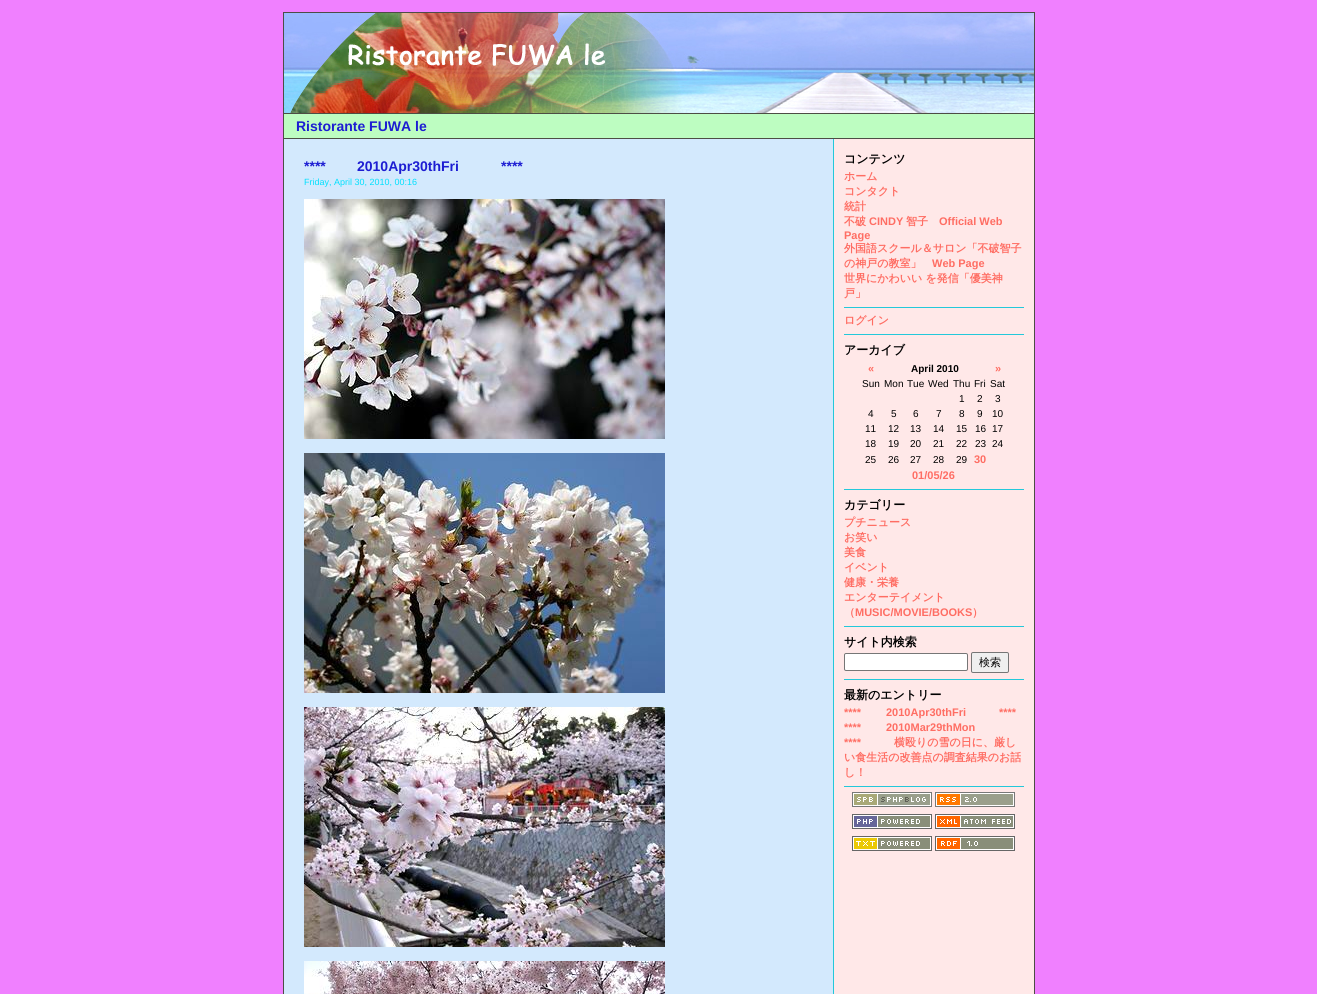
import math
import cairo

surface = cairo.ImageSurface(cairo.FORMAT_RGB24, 1317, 994)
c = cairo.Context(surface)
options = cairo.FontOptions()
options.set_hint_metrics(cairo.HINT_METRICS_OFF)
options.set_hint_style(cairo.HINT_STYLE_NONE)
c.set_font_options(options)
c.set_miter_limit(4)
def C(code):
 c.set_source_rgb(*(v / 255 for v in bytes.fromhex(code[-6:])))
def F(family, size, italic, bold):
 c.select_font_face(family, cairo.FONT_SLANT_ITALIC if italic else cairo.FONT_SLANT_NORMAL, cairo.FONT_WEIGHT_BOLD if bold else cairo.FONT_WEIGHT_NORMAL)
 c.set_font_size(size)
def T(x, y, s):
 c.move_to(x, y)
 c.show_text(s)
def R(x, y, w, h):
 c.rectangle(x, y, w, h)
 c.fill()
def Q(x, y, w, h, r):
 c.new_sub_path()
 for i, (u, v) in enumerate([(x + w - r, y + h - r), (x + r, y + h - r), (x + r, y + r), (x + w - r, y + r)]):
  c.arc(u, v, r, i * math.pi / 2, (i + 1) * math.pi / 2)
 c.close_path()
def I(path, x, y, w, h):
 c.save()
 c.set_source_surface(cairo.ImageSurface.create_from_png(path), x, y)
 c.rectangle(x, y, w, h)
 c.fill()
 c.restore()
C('f080ff')
c.paint()
c.rectangle(283.5,12.5,751,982)
C('4d4d45')
c.set_line_width(1)
c.stroke()
C('bdfdc1')
R(284,114,750,24)
C('4d4d45')
R(284,113,750,1)
I('1.png',284,13,750,100)
R(284,138,750,1)
F('Liberation Sans',14,0,1)
C('1d1dd2')
T(296,131,'Ristorante FUWA le')
C('d3e9fd')
R(284,139,549,855)
C('1d1dd2')
T(304,171,'****')
T(357,171,'2010Apr30thFri')
T(501,171,'****')
F('Liberation Sans',9,0,0)
C('01e0fe')
T(304,185,'Friday, April 30, 2010, 00:16')
I('2.png',304,199,361,240)
I('3.png',304,453,361,240)
I('4.png',304,707,361,240)
I('5.png',304,961,361,33)
C('ffe8e8')
R(834,139,200,855)
C('23c8da')
R(833,139,1,855)
F('WenQuanYi Zen Hei',12,0,1)
C('000000')
T(844,163,'コンテンツ')
F('WenQuanYi Zen Hei',11,0,1)
C('ff6d63')
T(844,180,'ホーム')
T(844,195,'コンタクト')
T(844,210,'統計')
T(844,225,'不破')
F('Liberation Sans',11,0,1)
T(869,225,'CINDY')
F('WenQuanYi Zen Hei',11,0,1)
T(906,225,'智子')
F('Liberation Sans',11,0,1)
T(939,225,'Official Web')
T(844,239,'Page')
F('WenQuanYi Zen Hei',11,0,1)
T(844,252,'外国語スクール＆サロン「不破智子')
T(844,267,'の神戸の教室」')
F('Liberation Sans',11,0,1)
T(932,267,'Web Page')
F('WenQuanYi Zen Hei',11,0,1)
T(844,282,'世界にかわいい を発信「優美神')
T(844,297,'戸」')
C('23c8da')
R(844,307,180,1)
C('ff6d63')
T(844,324,'ログイン')
C('23c8da')
R(844,334,180,1)
F('WenQuanYi Zen Hei',12,0,1)
C('000000')
T(844,354,'アーカイブ')
F('Liberation Sans',11,0,1)
C('ff6d63')
T(868,372,'«')
F('Liberation Sans',10,0,1)
C('000000')
T(911,372,'April 2010')
F('Liberation Sans',11,0,1)
C('ff6d63')
T(995,372,'»')
F('Liberation Sans',10,0,0)
C('000000')
T(862,387,'Sun')
T(884,387,'Mon')
T(907,387,'Tue')
T(928,387,'Wed')
T(953,387,'Thu')
T(974,387,'Fri')
T(990,387,'Sat')
T(959,402,'1')
T(977,402,'2')
T(995,402,'3')
T(868,417,'4')
T(891,417,'5')
T(913,417,'6')
T(936,417,'7')
T(959,417,'8')
T(977,417,'9')
T(992,417,'10')
T(865,432,'11')
T(888,432,'12')
T(910,432,'13')
T(933,432,'14')
T(956,432,'15')
T(975,432,'16')
T(992,432,'17')
T(865,447,'18')
T(888,447,'19')
T(910,447,'20')
T(933,447,'21')
T(956,447,'22')
T(975,447,'23')
T(992,447,'24')
T(865,463,'25')
T(888,463,'26')
T(910,463,'27')
T(933,463,'28')
T(956,463,'29')
F('Liberation Sans',11,0,1)
C('ff6d63')
T(974,463,'30')
T(912,479,'01/05/26')
C('23c8da')
R(844,489,180,1)
F('WenQuanYi Zen Hei',12,0,1)
C('000000')
T(844,509,'カテゴリー')
F('WenQuanYi Zen Hei',11,0,1)
C('ff6d63')
T(844,526,'プチニュース')
T(844,541,'お笑い')
T(844,556,'美食')
T(844,571,'イベント')
T(844,586,'健康・栄養')
T(844,601,'エンターテイメント')
T(844,616,'（')
F('Liberation Sans',11,0,1)
T(855,616,'MUSIC/MOVIE/BOOKS')
F('WenQuanYi Zen Hei',11,0,1)
T(972,616,'）')
C('23c8da')
R(844,626,180,1)
F('WenQuanYi Zen Hei',12,0,1)
C('000000')
T(844,646,'サイト内検索')
C('ffffff')
Q(844.5,653.5,123,17,1.5)
c.fill_preserve()
C('767676')
c.stroke()
C('efefef')
Q(971.5,652.5,37,20,1.5)
c.fill_preserve()
C('767676')
c.stroke()
F('WenQuanYi Zen Hei Medium',11,0,0)
C('000000')
T(979,666,'検索')
C('23c8da')
R(844,679,180,1)
F('WenQuanYi Zen Hei',12,0,1)
C('000000')
T(844,699,'最新のエントリー')
F('Liberation Sans',11,0,1)
C('ff6d63')
T(844,716,'****')
T(886,716,'2010Apr30thFri')
T(999,716,'****')
T(844,731,'****')
T(886,731,'2010Mar29thMon')
T(844,746,'****')
F('WenQuanYi Zen Hei',11,0,1)
T(894,746,'横殴りの雪の日に、厳し')
T(844,761,'い食生活の改善点の調査結果のお話')
T(844,776,'し！')
C('23c8da')
R(844,786,180,1)
I('6.png',852,792,80,15)
I('7.png',935,792,80,15)
I('8.png',852,814,80,15)
I('9.png',935,814,80,15)
I('10.png',852,836,80,15)
I('11.png',935,836,80,15)
surface.write_to_png('o.png')
